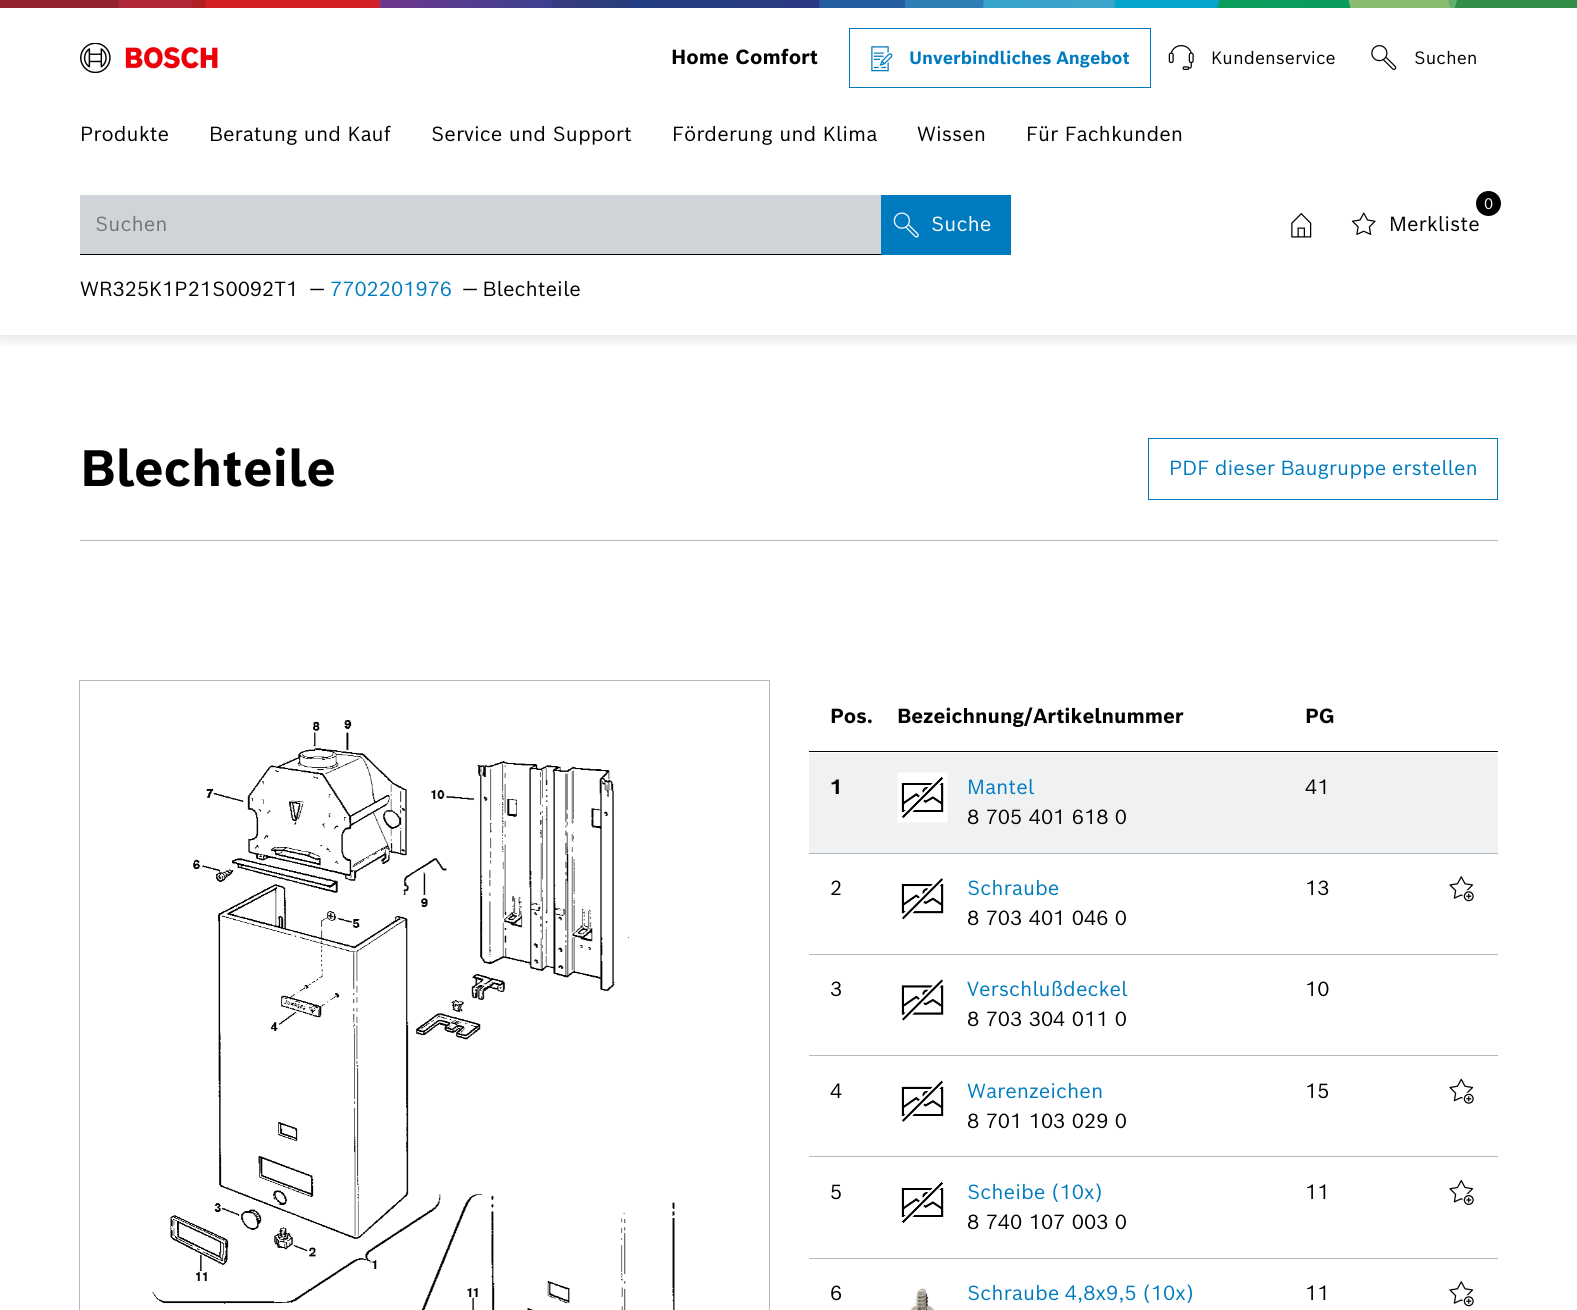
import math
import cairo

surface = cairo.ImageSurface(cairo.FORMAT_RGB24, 1577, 1310)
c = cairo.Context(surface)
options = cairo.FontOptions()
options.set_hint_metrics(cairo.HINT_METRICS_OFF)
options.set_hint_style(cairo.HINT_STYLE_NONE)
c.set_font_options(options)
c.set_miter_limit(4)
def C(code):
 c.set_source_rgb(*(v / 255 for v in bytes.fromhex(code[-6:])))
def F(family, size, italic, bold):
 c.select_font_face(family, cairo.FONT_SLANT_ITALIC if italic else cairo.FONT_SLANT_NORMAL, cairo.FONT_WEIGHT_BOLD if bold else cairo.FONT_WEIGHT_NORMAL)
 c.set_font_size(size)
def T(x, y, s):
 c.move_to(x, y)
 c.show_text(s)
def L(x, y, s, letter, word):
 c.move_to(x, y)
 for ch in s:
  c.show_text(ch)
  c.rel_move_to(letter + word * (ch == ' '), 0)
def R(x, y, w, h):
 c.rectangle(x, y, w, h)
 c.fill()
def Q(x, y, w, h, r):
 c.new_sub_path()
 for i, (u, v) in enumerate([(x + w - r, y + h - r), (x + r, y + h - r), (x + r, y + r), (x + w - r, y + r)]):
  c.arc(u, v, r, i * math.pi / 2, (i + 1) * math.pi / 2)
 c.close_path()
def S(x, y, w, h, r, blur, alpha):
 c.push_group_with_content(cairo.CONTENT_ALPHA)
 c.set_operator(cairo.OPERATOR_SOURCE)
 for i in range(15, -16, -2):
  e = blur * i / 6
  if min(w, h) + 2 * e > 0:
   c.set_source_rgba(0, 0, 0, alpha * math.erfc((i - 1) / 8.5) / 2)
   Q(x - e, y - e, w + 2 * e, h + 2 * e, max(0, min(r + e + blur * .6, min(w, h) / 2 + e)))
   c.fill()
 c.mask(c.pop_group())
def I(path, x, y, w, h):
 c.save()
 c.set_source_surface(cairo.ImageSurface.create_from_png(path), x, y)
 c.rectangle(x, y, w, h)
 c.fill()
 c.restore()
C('ffffff')
c.paint()
c.save()
c.rectangle(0,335,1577,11)
c.clip()
C('000000')
S(0,165,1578,170,0,10,.16)
c.restore()
C('ffffff')
R(0,150,1577,15)
I('1.png',0,0,1577,8)
I('2.png',80,43,138,30)
F('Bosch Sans',20,0,1)
C('000000')
T(671,64,'Home Comfort')
c.rectangle(849.5,28.5,301,59)
C('007bc0')
c.set_line_width(1)
c.stroke()
I('3.png',871,46,22,26)
F('Bosch Sans',17.5,0,1)
L(909,64,'Unverbindliches Angebot',0,-1)
I('4.png',1168,45,26,25)
F('Bosch Sans',17.5,0,0)
C('000000')
T(1211,64,'Kundenservice')
I('5.png',1371,45,26,25)
T(1414,64,'Suchen')
F('Bosch Sans',20,0,0)
T(80,141,'Produkte')
T(209,141,'Beratung und Kauf')
T(431,141,'Service und Support')
T(672,141,'Förderung und Klima')
T(917,141,'Wissen')
T(1026,141,'Für Fachkunden')
C('d0d4d8')
R(80,195,801,59)
C('000000')
R(80,254,801,1)
C('757575')
T(95,231,'Suchen')
C('007bc0')
R(881,195,130,60)
I('6.png',893,212,26,26)
C('ffffff')
T(931,231,'Suche')
I('7.png',1291,213,21,25)
C('000000')
c.arc(1488.5,203.5,12.5,0,2 * math.pi)
c.fill()
F('Bosch Sans',15,0,0)
C('ffffff')
T(1484,209,'0')
I('8.png',1351,212,25,23)
F('Bosch Sans',20,0,0)
C('000000')
T(1389,231,'Merkliste')
T(80,296,'WR325K1P21S0092T1')
T(311,296,'—')
C('007bc0')
T(330,296,'7702201976')
C('000000')
T(464,296,'— Blechteile')
C('b2b9c0')
R(80,540,1418,1)
F('Bosch Sans',50,0,1)
C('000000')
T(80,486,'Blechteile')
c.rectangle(1148.5,438.5,349,61)
C('007bc0')
c.stroke()
F('Bosch Sans',20,0,0)
L(1169,475,'PDF dieser Baugruppe erstellen',0,-1)
c.rectangle(79.5,680.5,690,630)
C('b2b9c0')
c.stroke()
I('9.png',152,720,523,590)
C('000000')
R(809,751,689,1)
F('Bosch Sans',20,0,1)
T(830,723,'Pos.')
T(897,723,'Bezeichnung/Artikelnummer')
T(1305,723,'PG')
C('eff1f2')
R(809,753,689,100)
C('b2b9c0')
R(809,853,689,1)
C('000000')
T(830,794,'1')
I('10.png',897,772,51,51)
F('Bosch Sans',20,0,0)
C('007bc0')
T(967,794,'Mantel')
C('000000')
T(967,824,'8 705 401 618 0')
T(1305,794,'41')
C('b2b9c0')
R(809,954,689,1)
C('000000')
T(830,895,'2')
I('11.png',901,878,43,42)
C('007bc0')
T(967,895,'Schraube')
C('000000')
T(967,925,'8 703 401 046 0')
T(1305,895,'13')
I('12.png',1449,876,25,26)
C('b2b9c0')
R(809,1055,689,1)
C('000000')
T(830,996,'3')
I('13.png',901,979,43,42)
C('007bc0')
T(967,996,'Verschlußdeckel')
C('000000')
T(967,1026,'8 703 304 011 0')
T(1305,996,'10')
C('b2b9c0')
R(809,1156,689,1)
C('000000')
T(830,1098,'4')
I('14.png',901,1080,43,42)
C('007bc0')
T(967,1098,'Warenzeichen')
C('000000')
T(967,1128,'8 701 103 029 0')
T(1305,1098,'15')
I('15.png',1449,1078,25,26)
C('b2b9c0')
R(809,1258,689,1)
C('000000')
T(830,1199,'5')
I('16.png',901,1181,43,43)
C('007bc0')
L(967,1199,'Scheibe (10x)',0,-1)
C('000000')
T(967,1229,'8 740 107 003 0')
T(1305,1199,'11')
I('17.png',1449,1180,25,25)
T(830,1300,'6')
I('18.png',911,1288,23,22)
C('007bc0')
L(967,1300,'Schraube 4,8x9,5 (10x)',0,-1)
C('000000')
T(1305,1300,'11')
I('12.png',1449,1281,25,26)
surface.write_to_png('o.png')
